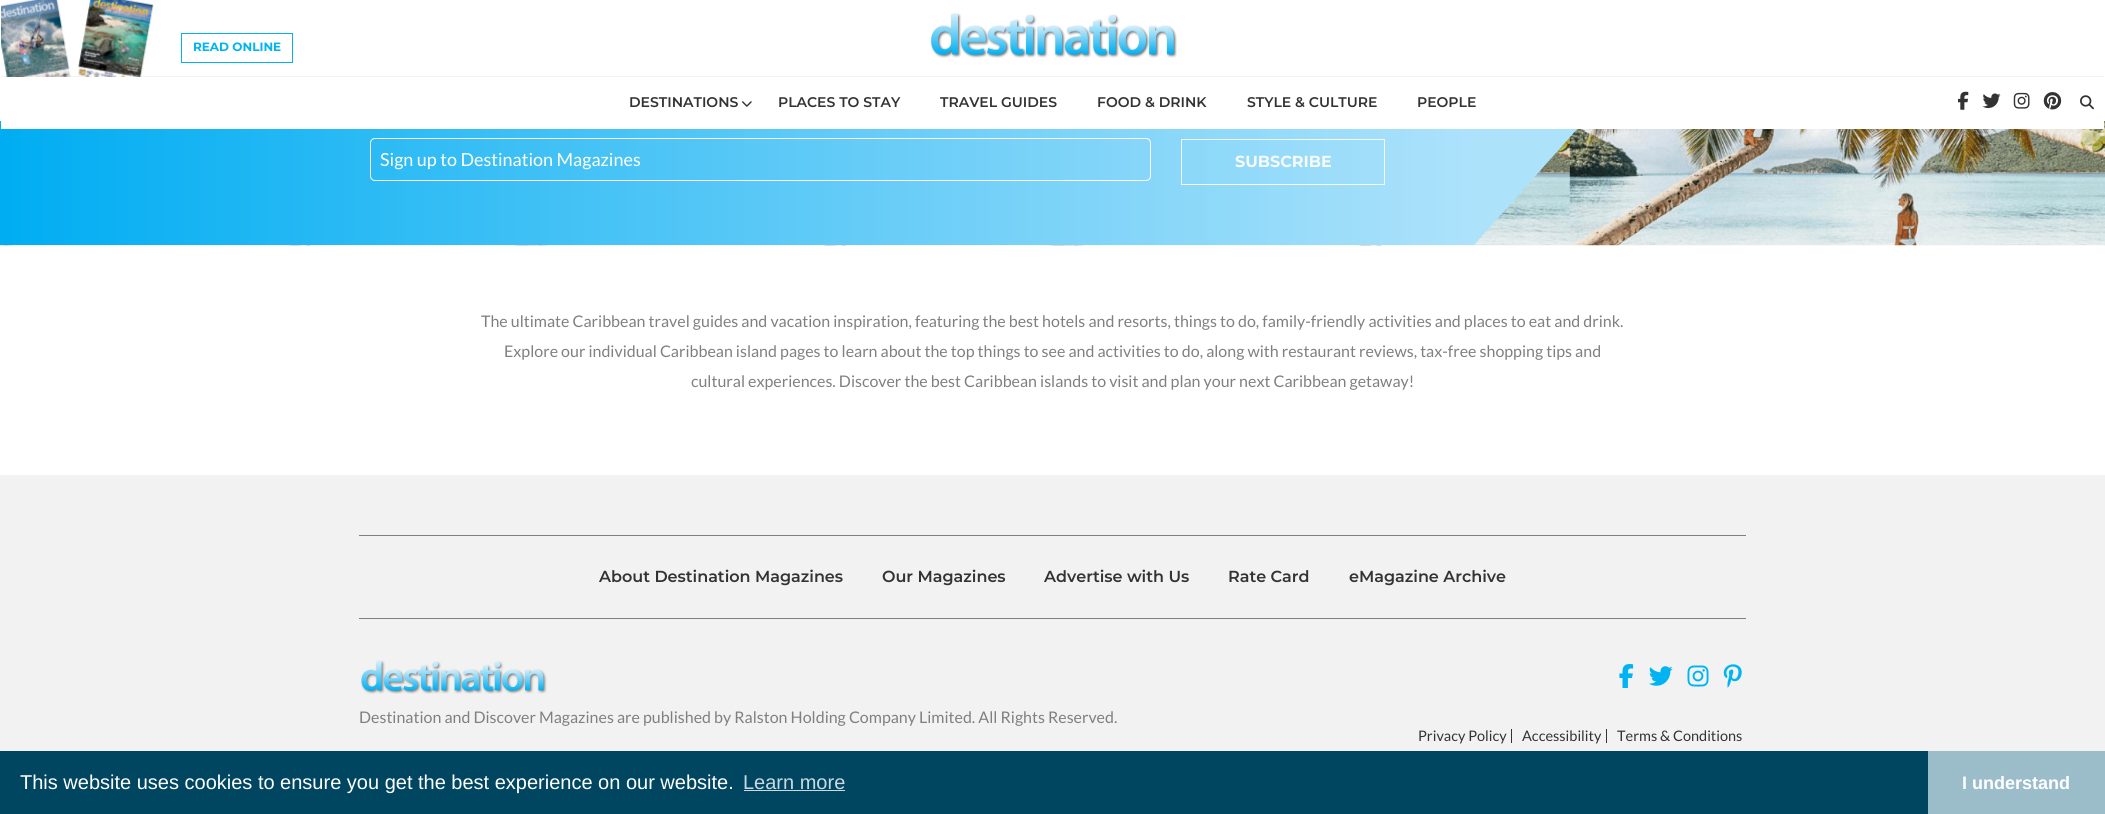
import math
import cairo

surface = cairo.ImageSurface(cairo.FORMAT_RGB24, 2105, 814)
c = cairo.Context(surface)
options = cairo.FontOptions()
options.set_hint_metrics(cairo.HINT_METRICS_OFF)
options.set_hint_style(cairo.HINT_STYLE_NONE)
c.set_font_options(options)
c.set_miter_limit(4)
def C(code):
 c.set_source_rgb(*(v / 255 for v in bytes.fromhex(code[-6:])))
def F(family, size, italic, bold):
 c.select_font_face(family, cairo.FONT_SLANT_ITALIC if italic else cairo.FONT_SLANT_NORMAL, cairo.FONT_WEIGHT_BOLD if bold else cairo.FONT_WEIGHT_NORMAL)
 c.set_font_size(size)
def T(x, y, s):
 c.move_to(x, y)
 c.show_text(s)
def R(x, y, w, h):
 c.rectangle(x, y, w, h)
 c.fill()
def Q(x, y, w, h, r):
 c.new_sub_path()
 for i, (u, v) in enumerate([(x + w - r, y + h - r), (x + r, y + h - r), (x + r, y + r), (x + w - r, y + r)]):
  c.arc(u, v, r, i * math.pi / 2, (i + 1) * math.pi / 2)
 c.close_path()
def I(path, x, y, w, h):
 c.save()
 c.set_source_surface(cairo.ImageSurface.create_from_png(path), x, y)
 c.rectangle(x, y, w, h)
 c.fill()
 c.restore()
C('ffffff')
c.paint()
I('10.png',0,121,2105,125)
C('ace2fa')
c.new_path()
c.move_to(1474,-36)
c.line_to(1724,-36)
c.line_to(1474,245)
c.close_path()
c.fill()
C('ffffff')
R(1474,0,218,121)
gradient = cairo.LinearGradient(0,104,1474,104)
gradient.add_color_stop_rgba(0,0,0.678,0.949,1)
gradient.add_color_stop_rgba(1,0.678,0.886,0.984,1)
c.set_source(gradient)
R(0,121,1474,124)
C('ffffff')
R(1,121,2103,8)
C('f2f2f2')
R(1,76,2103,1)
I('1.png',1,0,70,77)
I('2.png',78,0,76,77)
c.rectangle(181.5,33.5,111,29)
C('00b4f4')
c.set_line_width(1)
c.stroke()
F('Montserrat',12,0,1)
T(193,51,'READ ONLINE')
I('3.png',930,13,247,45)
I('4.png',1958,91,11,19)
I('5.png',1982,93,19,16)
I('6.png',2013,92,17,17)
I('7.png',2043,92,19,18)
I('8.png',2080,95,14,15)
F('Montserrat SemiBold',14,0,0)
C('333333')
T(629,107,'DESTINATIONS')
I('9.png',742,101,10,6)
T(778,107,'PLACES TO STAY')
T(940,107,'TRAVEL GUIDES')
T(1097,107,'FOOD & DRINK')
T(1247,107,'STYLE & CULTURE')
T(1417,107,'PEOPLE')
Q(370.5,138.5,780,42,4.5)
C('ffffff')
c.stroke()
F('Lato',18,0,0)
T(380,166,'Sign up to Destination Magazines')
c.rectangle(1181.5,139.5,203,45)
C('f8f9fa')
c.stroke()
F('Montserrat',16,0,1)
T(1235,167,'SUBSCRIBE')
F('Lato',16,0,0)
C('808080')
T(481,327,'The ultimate Caribbean travel guides and vacation inspiration, featuring the best hotels and resorts, things to do, family-friendly activities and places to eat and drink.')
T(504,357,'Explore our individual Caribbean island pages to learn about the top things to see and activities to do, along with restaurant reviews, tax-free shopping tips and')
T(691,387,'cultural experiences. Discover the best Caribbean islands to visit and plan your next Caribbean getaway!')
C('f2f2f2')
R(0,475,2105,276)
C('808080')
R(359,535,1387,1)
R(359,618,1387,1)
F('Montserrat SemiBold',16,0,0)
C('333333')
T(599,582,'About Destination Magazines')
T(882,582,'Our Magazines')
T(1044,582,'Advertise with Us')
T(1228,582,'Rate Card')
T(1349,582,'eMagazine Archive')
I('11.png',361,660,186,34)
F('Lato',16,0,0)
C('808080')
T(359,723,'Destination and Discover Magazines are published by Ralston Holding Company Limited. All Rights Reserved.')
I('12.png',1619,664,15,24)
I('13.png',1649,666,24,20)
I('14.png',1687,665,22,22)
I('15.png',1723,664,19,24)
C('333333')
R(1511,729,1,14)
F('Lato',14.5,0,0)
T(1418,741,'Privacy Policy')
R(1606,729,1,14)
T(1522,741,'Accessibility')
T(1617,741,'Terms & Conditions')
C('004661')
R(0,751,1928,63)
F('Liberation Sans',20,0,0)
C('ffffff')
T(20,789,'This website uses cookies to ensure you get the best experience on our website.')
C('ccdadf')
T(743,789,'Learn more')
R(744,790,101,1)
C('9bbdca')
R(1928,751,177,63)
F('Liberation Sans',18,0,1)
C('ffffff')
T(1962,789,'I understand')
surface.write_to_png('o.png')
